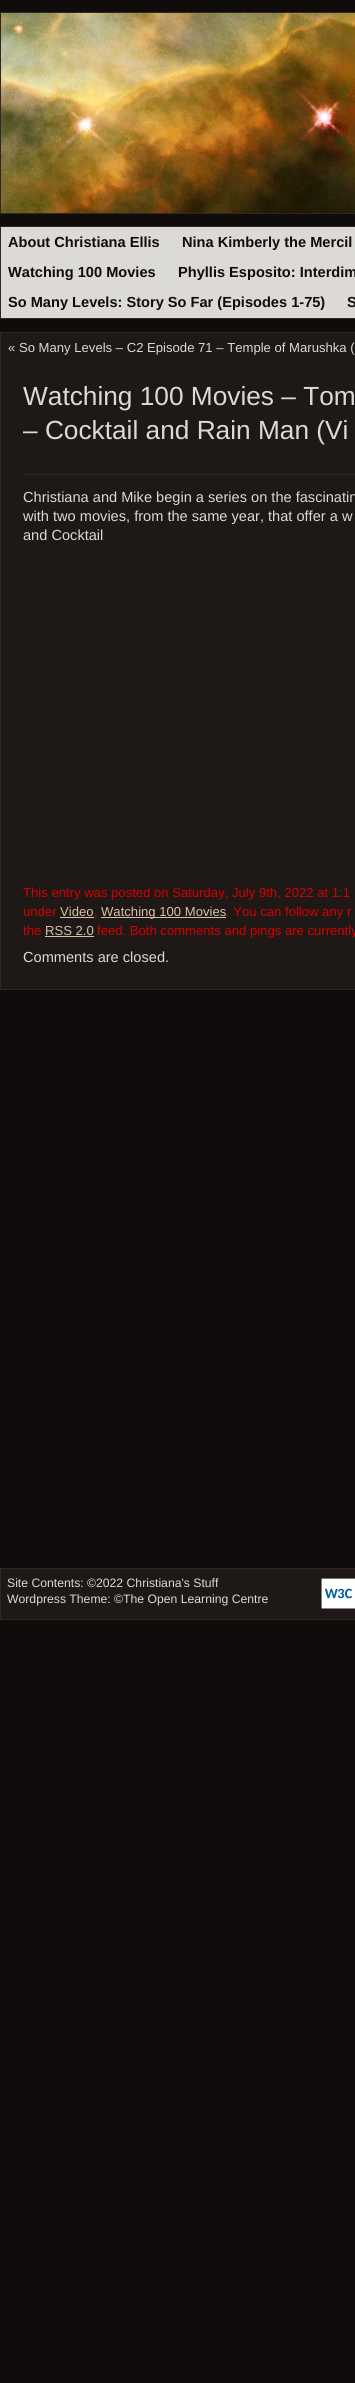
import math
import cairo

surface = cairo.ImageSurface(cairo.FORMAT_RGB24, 355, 2383)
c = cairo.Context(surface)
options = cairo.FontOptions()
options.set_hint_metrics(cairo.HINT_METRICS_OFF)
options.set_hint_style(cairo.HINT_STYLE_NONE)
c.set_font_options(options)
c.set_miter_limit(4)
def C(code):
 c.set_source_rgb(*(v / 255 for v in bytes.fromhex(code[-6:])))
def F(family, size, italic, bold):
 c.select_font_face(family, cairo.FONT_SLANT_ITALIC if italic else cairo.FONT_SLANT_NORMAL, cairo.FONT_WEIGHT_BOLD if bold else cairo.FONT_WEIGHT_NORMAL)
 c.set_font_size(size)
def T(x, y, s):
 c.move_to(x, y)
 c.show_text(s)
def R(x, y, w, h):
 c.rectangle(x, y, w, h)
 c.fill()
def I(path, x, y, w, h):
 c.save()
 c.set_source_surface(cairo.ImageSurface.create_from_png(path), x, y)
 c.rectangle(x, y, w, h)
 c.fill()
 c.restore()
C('0f0c0b')
c.paint()
I('1.png',1,13,354,200)
c.rectangle(.5,12.5,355,201)
C('302724')
c.set_line_width(1)
c.stroke()
C('dcdad5')
c.rectangle(.5,226.5,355,92)
c.fill_preserve()
C('302724')
c.stroke()
F('Liberation Sans',14.6,0,1)
C('0f0c0b')
T(8,247,'About Christiana Ellis')
T(182,247,'Nina Kimberly the Mercil')
T(8,277,'Watching 100 Movies')
T(178,277,'Phyllis Esposito: Interdim')
T(8,307,'So Many Levels: Story So Far (Episodes 1-75)')
T(347,307,'S')
C('1e1816')
c.rectangle(.5,332.5,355,657)
c.fill_preserve()
C('302724')
c.stroke()
F('Liberation Sans',13.1,0,0)
C('dcdad5')
T(8,352,'« So Many Levels – C2 Episode 71 – Temple of Marushka (')
C('302724')
R(23,474,332,1)
F('Liberation Sans',26.25,0,0)
C('dcdad5')
T(23,405,'Watching 100 Movies – Tom')
T(23,439,'– Cocktail and Rain Man (Vi')
F('Liberation Sans',14.6,0,0)
T(23,502,'Christiana and Mike begin a series on the fascinatin')
T(23,521,'with two movies, from the same year, that offer a w')
T(23,540,'and Cocktail')
F('Liberation Sans',13.1,0,0)
C('d40000')
T(23,897,'This entry was posted on Saturday, July 9th, 2022 at 1:1')
T(23,916,'under')
C('d7c1a6')
T(60,916,'Video')
C('d40000')
T(94,916,',')
C('d7c1a6')
R(60,917,34,1)
R(101,917,125,1)
T(101,916,'Watching 100 Movies')
C('d40000')
T(226,916,'. You can follow any r')
T(23,935,'the')
C('d7c1a6')
T(45,935,'RSS 2.0')
R(45,936,49,1)
C('d40000')
T(97,935,'feed. Both comments and pings are currently')
F('Liberation Sans',14.6,0,0)
C('dcdad5')
T(23,962,'Comments are closed.')
C('1e1816')
c.rectangle(.5,1568.5,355,51)
c.fill_preserve()
C('302724')
c.stroke()
F('Liberation Sans',12.2,0,0)
C('dcdad5')
T(7,1587,'Site Contents: ©2022 Christiana\'s Stuff')
T(7,1603,'Wordpress Theme: ©The Open Learning Centre')
I('2.png',321,1578,34,31)
surface.write_to_png('o.png')
